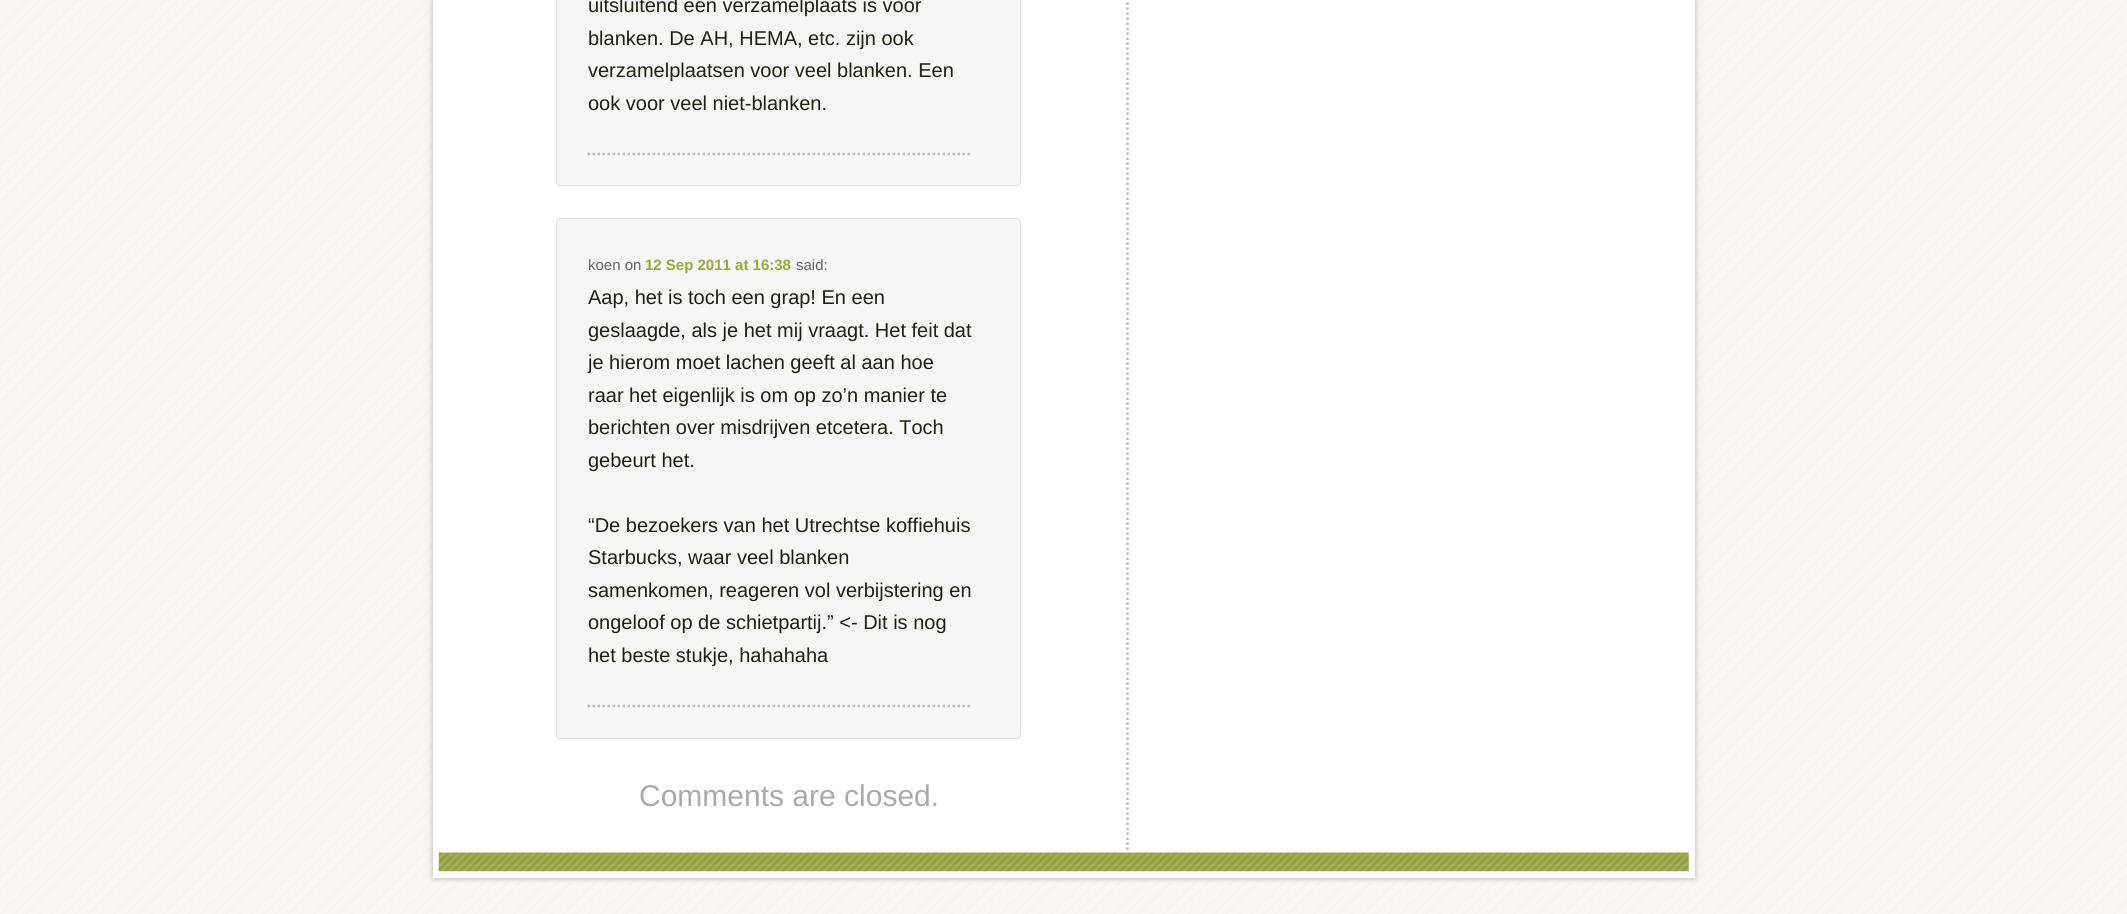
import math
import cairo

surface = cairo.ImageSurface(cairo.FORMAT_RGB24, 2127, 914)
c = cairo.Context(surface)
options = cairo.FontOptions()
options.set_hint_metrics(cairo.HINT_METRICS_OFF)
options.set_hint_style(cairo.HINT_STYLE_NONE)
c.set_font_options(options)
c.set_miter_limit(4)
def C(code):
 c.set_source_rgb(*(v / 255 for v in bytes.fromhex(code[-6:])))
def F(family, size, italic, bold):
 c.select_font_face(family, cairo.FONT_SLANT_ITALIC if italic else cairo.FONT_SLANT_NORMAL, cairo.FONT_WEIGHT_BOLD if bold else cairo.FONT_WEIGHT_NORMAL)
 c.set_font_size(size)
def T(x, y, s):
 c.move_to(x, y)
 c.show_text(s)
def R(x, y, w, h):
 c.rectangle(x, y, w, h)
 c.fill()
def Q(x, y, w, h, r):
 c.new_sub_path()
 for i, (u, v) in enumerate([(x + w - r, y + h - r), (x + r, y + h - r), (x + r, y + r), (x + w - r, y + r)]):
  c.arc(u, v, r, i * math.pi / 2, (i + 1) * math.pi / 2)
 c.close_path()
def S(x, y, w, h, r, blur, alpha):
 c.push_group_with_content(cairo.CONTENT_ALPHA)
 c.set_operator(cairo.OPERATOR_SOURCE)
 for i in range(15, -16, -2):
  e = blur * i / 6
  if min(w, h) + 2 * e > 0:
   c.set_source_rgba(0, 0, 0, alpha * math.erfc((i - 1) / 8.5) / 2)
   Q(x - e, y - e, w + 2 * e, h + 2 * e, max(0, min(r + e + blur * .6, min(w, h) / 2 + e)))
   c.fill()
 c.mask(c.pop_group())
def I(path, x, y, w, h):
 c.save()
 c.set_source_surface(cairo.ImageSurface.create_from_png(path), x, y)
 c.rectangle(x, y, w, h)
 c.fill()
 c.restore()
C('ffffff')
c.paint()
I('1.png',0,0,2127,914)
C('000000')
S(433,-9,1262,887,0,3,.3)
C('ffffff')
R(433,0,1262,878)
c.new_path()
c.move_to(1127.5,-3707.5)
c.line_to(1127.5,852.5)
C('c0c0c0')
c.set_line_width(2.5)
c.set_dash([2.5,2.5])
c.stroke()
C('f6f6f6')
Q(556.5,-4.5,464,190,3.5)
c.fill_preserve()
C('dddddd')
c.set_line_width(1)
c.set_dash([])
c.stroke()
c.new_path()
c.move_to(587.5,154)
c.line_to(971,154)
C('c0c0c0')
c.set_line_width(2.5)
c.set_dash([2.5,2.5])
c.stroke()
F('Liberation Sans',20,0,0)
C('21200d')
T(588,12,'uitsluitend een verzamelplaats is voor')
T(588,45,'blanken. De AH, HEMA, etc. zijn ook')
T(588,77,'verzamelplaatsen voor veel blanken. Een')
T(588,110,'ook voor veel niet-blanken.')
C('f6f6f6')
Q(556.5,218.5,464,520,3.5)
c.fill_preserve()
C('dddddd')
c.set_line_width(1)
c.set_dash([])
c.stroke()
c.new_path()
c.move_to(587.5,706)
c.line_to(971,706)
C('c0c0c0')
c.set_line_width(2.5)
c.set_dash([2.5,2.5])
c.stroke()
F('Liberation Sans',15,0,0)
C('666666')
T(588,270,'koen on')
F('Liberation Sans',15,0,1)
C('9aa93a')
T(645,270,'12 Sep 2011 at 16:38')
F('Liberation Sans',15,0,0)
C('666666')
T(796,270,'said:')
F('Liberation Sans',20,0,0)
C('21200d')
T(588,304,'Aap, het is toch een grap! En een')
T(588,337,'geslaagde, als je het mij vraagt. Het feit dat')
T(588,369,'je hierom moet lachen geeft al aan hoe')
T(588,402,'raar het eigenlijk is om op zo’n manier te')
T(588,434,'berichten over misdrijven etcetera. Toch')
T(588,467,'gebeurt het.')
T(588,532,'“De bezoekers van het Utrechtse koffiehuis')
T(588,564,'Starbucks, waar veel blanken')
T(588,597,'samenkomen, reageren vol verbijstering en')
T(588,629,'ongeloof op de schietpartij.” <- Dit is nog')
T(588,662,'het beste stukje, hahahaha')
F('Liberation Sans',30,0,0)
C('aaaaaa')
T(639,806,'Comments are closed.')
I('2.png',438,852,1251,20)
surface.write_to_png('o.png')
